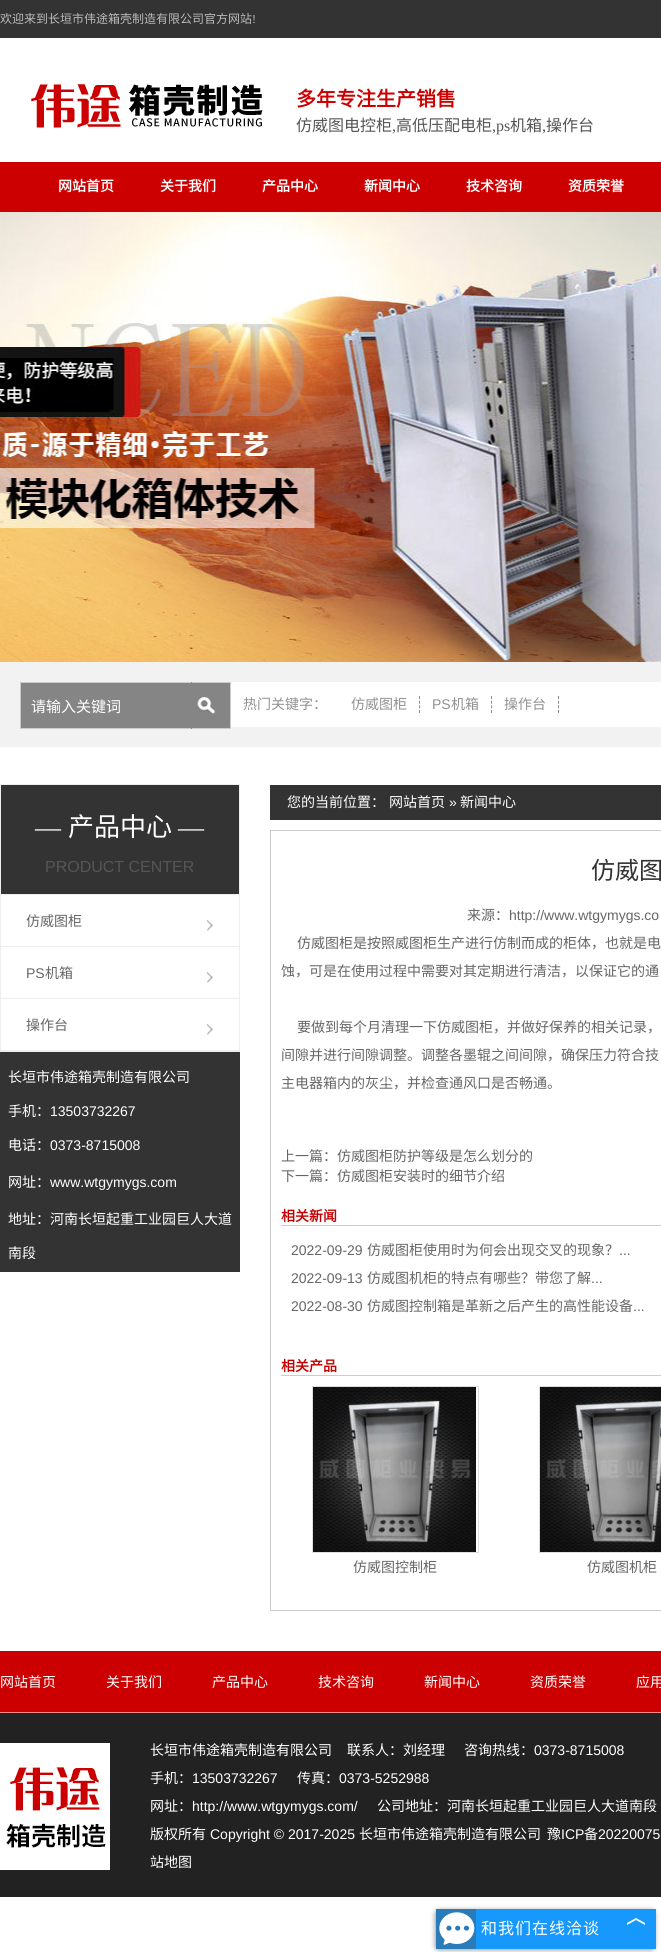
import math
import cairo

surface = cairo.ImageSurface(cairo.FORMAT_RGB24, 661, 1952)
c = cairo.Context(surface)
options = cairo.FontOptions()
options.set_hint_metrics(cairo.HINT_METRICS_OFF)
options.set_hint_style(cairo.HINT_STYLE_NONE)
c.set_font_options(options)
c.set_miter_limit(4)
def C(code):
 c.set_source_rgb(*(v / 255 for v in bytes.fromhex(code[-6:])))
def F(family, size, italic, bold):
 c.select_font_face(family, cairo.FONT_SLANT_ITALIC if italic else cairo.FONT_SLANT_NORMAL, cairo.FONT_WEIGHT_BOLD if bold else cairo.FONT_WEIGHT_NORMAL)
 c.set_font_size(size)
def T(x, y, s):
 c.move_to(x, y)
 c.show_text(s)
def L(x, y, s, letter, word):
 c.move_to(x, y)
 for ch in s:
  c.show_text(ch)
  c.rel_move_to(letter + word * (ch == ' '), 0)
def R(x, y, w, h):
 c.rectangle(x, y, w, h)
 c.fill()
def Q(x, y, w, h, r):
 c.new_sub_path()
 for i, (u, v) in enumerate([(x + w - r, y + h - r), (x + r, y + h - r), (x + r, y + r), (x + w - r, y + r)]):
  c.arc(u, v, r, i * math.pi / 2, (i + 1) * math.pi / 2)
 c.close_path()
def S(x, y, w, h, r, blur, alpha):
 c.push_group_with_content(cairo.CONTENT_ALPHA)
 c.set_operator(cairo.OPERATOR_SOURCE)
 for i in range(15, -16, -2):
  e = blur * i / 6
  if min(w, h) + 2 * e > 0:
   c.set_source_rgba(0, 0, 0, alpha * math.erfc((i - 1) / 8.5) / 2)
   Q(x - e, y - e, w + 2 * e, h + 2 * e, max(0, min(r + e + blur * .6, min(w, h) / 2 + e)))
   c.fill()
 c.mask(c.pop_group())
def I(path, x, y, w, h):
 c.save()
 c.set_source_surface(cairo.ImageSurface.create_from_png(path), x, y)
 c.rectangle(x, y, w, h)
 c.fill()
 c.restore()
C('ffffff')
c.paint()
I('1.png',0,0,661,212)
F('Noto Sans CJK SC',12,0,0)
C('bbbbbb')
T(0,23,'欢迎来到长垣市伟途箱壳制造有限公司官方网站')
F('Liberation Serif',12,0,0)
T(252,23,'!')
I('2.png',31,84,232,44)
F('Noto Sans CJK SC',20,0,1)
C('cc0000')
T(296,106,'多年专注生产销售')
F('Noto Sans CJK SC',16,0,0)
C('555555')
T(296,131,'仿威图电控柜')
F('Liberation Serif',16,0,0)
T(392,131,',')
F('Noto Sans CJK SC',16,0,0)
T(396,131,'高低压配电柜')
F('Liberation Serif',16,0,0)
T(492,131,',ps')
F('Noto Sans CJK SC',16,0,0)
T(510,131,'机箱')
F('Liberation Serif',16,0,0)
T(542,131,',')
F('Noto Sans CJK SC',16,0,0)
T(546,131,'操作台')
F('Noto Sans CJK SC',14,0,1)
C('ffffff')
T(58,191,'网站首页')
T(160,191,'关于我们')
T(262,191,'产品中心')
T(364,191,'新闻中心')
T(466,191,'技术咨询')
T(568,191,'资质荣誉')
I('3.png',0,212,661,450)
C('f2f2f2')
R(0,662,661,85)
C('ffffff')
R(231,682,430,45)
C('858585')
R(21,683,170,45)
C('cccccc')
R(20,682,211,1)
R(20,728,171,1)
R(20,682,1,47)
F('Noto Sans CJK SC',15,0,0)
C('ffffff')
T(31,712,'请输入关键词')
C('858585')
R(192,683,38,45)
I('4.png',197,697,18,17)
C('cccccc')
R(230,682,1,47)
R(191,728,40,1)
C('858585')
R(191,682,1,47)
F('Noto Sans CJK SC',14,0,0)
C('919191')
T(243,709,'热门关键字：')
c.new_path()
c.move_to(419.5,696)
c.line_to(419.5,713)
C('8c8c8c')
c.set_line_width(1)
c.set_dash([3,1.67])
c.stroke()
C('919191')
T(351,709,'仿威图柜')
c.new_path()
c.move_to(491.5,696)
c.line_to(491.5,713)
C('8c8c8c')
c.stroke()
F('Liberation Sans',14,0,0)
C('919191')
T(432,709,'PS')
F('Noto Sans CJK SC',14,0,0)
T(451,709,'机箱')
c.new_path()
c.move_to(558.5,696)
c.line_to(558.5,713)
C('8c8c8c')
c.stroke()
C('919191')
T(504,709,'操作台')
c.rectangle(.5,784.5,239,267)
C('eeeeee')
c.set_dash([])
c.stroke()
C('333333')
R(1,785,238,109)
C('eeeeee')
R(1,894,238,1)
F('Liberation Serif',26,0,0)
C('ffffff')
T(35,836,'—')
F('Noto Sans CJK SC',26,0,0)
T(68,836,'产品中心')
F('Liberation Serif',26,0,0)
T(178,836,'—')
F('Liberation Sans',16,0,0)
C('555555')
T(45,872,'PRODUCT CENTER')
I('5.png',206,919,7,12)
C('eeeeee')
R(1,946,238,1)
F('Noto Sans CJK SC',14,0,0)
C('666666')
T(26,926,'仿威图柜')
I('5.png',206,971,7,12)
C('eeeeee')
R(1,998,238,1)
F('Liberation Sans',14,0,0)
C('666666')
T(26,978,'PS')
F('Noto Sans CJK SC',14,0,0)
T(45,978,'机箱')
I('5.png',206,1023,7,12)
C('eeeeee')
R(1,1050,238,1)
C('666666')
T(26,1030,'操作台')
C('333333')
R(0,1052,240,220)
C('ffffff')
T(8,1082,'长垣市伟途箱壳制造有限公司')
T(8,1116,'手机：')
F('Liberation Sans',14,0,0)
T(50,1116,'13503732267')
F('Noto Sans CJK SC',14,0,0)
T(8,1150,'电话：')
F('Liberation Sans',14,0,0)
T(50,1150,'0373-8715008')
F('Noto Sans CJK SC',14,0,0)
T(8,1187,'网址：')
F('Liberation Sans',14,0,0)
T(50,1187,'www.wtgymygs.com')
F('Noto Sans CJK SC',14,0,0)
T(8,1224,'地址：河南长垣起重工业园巨人大道')
T(8,1258,'南段')
C('333333')
R(270,785,391,35)
C('ffffff')
T(287,807,'您的当前位置：')
T(389,807,'网站首页')
F('Liberation Sans',14,0,0)
T(449,807,'»')
F('Noto Sans CJK SC',14,0,0)
T(460,807,'新闻中心')
c.rectangle(270.5,830.5,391,780)
C('cccccc')
c.stroke()
F('Noto Sans CJK SC',24,0,0)
C('333333')
T(591,879,'仿威图')
F('Noto Sans CJK SC',14,0,0)
C('666666')
T(467,920,'来源：')
F('Liberation Sans',14,0,0)
T(509,920,'http://www.wtgymygs.co')
F('Noto Sans CJK SC',14,0,0)
T(297,948,'仿威图柜是按照威图柜生产进行仿制而成的柜体，也就是电')
T(281,976,'蚀，可是在使用过程中需要对其定期进行清洁，以保证它的通')
T(297,1032,'要做到每个月清理一下仿威图柜，并做好保养的相关记录，')
T(281,1060,'间隙并进行间隙调整。调整各墨辊之间间隙，确保压力符合技')
T(281,1088,'主电器箱内的灰尘，并检查通风口是否畅通。')
T(281,1161,'上一篇：仿威图柜防护等级是怎么划分的')
T(281,1181,'下一篇：仿威图柜安装时的细节介绍')
C('cccccc')
R(281,1225,380,1)
F('Noto Sans CJK SC',14,0,1)
C('c40000')
T(281,1221,'相关新闻')
F('Liberation Sans',14,0,0)
C('666666')
T(291,1255,'2022-09-29')
F('Noto Sans CJK SC',14,0,0)
T(367,1255,'仿威图柜使用时为何会出现交叉的现象？')
F('Liberation Sans',14,0,0)
T(619,1255,'...')
T(291,1283,'2022-09-13')
F('Noto Sans CJK SC',14,0,0)
T(367,1283,'仿威图机柜的特点有哪些？带您了解')
F('Liberation Sans',14,0,0)
T(591,1283,'...')
T(291,1311,'2022-08-30')
F('Noto Sans CJK SC',14,0,0)
T(367,1311,'仿威图控制箱是革新之后产生的高性能设备')
F('Liberation Sans',14,0,0)
T(633,1311,'...')
C('cccccc')
R(281,1375,380,1)
F('Noto Sans CJK SC',14,0,1)
C('c40000')
T(281,1371,'相关产品')
c.rectangle(312.5,1386.5,166,166)
C('dddddd')
c.stroke()
I('6.png',313,1387,163,165)
F('Noto Sans CJK SC',14,0,0)
C('666666')
T(353,1572,'仿威图控制柜')
c.rectangle(539.5,1386.5,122,166)
C('dddddd')
c.stroke()
I('7.png',540,1387,121,165)
C('666666')
T(587,1572,'仿威图机柜')
C('222222')
R(0,1713,661,184)
C('cc0000')
R(0,1651,661,61)
C('fd8a8a')
R(0,1712,661,1)
C('ffffff')
T(0,1687,'网站首页')
T(106,1687,'关于我们')
T(212,1687,'产品中心')
T(318,1687,'技术咨询')
T(424,1687,'新闻中心')
T(530,1687,'资质荣誉')
T(636,1687,'应用')
I('8.png',0,1743,110,127)
T(150,1755,'长垣市伟途箱壳制造有限公司')
T(347,1755,'联系人：刘经理')
T(464,1755,'咨询热线：')
F('Liberation Sans',14,0,0)
T(534,1755,'0373-8715008')
F('Noto Sans CJK SC',14,0,0)
T(150,1783,'手机：')
F('Liberation Sans',14,0,0)
T(192,1783,'13503732267')
F('Noto Sans CJK SC',14,0,0)
T(297,1783,'传真：')
F('Liberation Sans',14,0,0)
T(339,1783,'0373-5252988')
F('Noto Sans CJK SC',14,0,0)
T(150,1811,'网址：')
F('Liberation Sans',14,0,0)
T(192,1811,'http://www.wtgymygs.com/')
F('Noto Sans CJK SC',14,0,0)
T(377,1811,'公司地址：河南长垣起重工业园巨人大道南段')
T(150,1839,'版权所有')
F('Liberation Sans',14,0,0)
T(210,1839,'Copyright © 2017-2025')
F('Noto Sans CJK SC',14,0,0)
T(359,1839,'长垣市伟途箱壳制造有限公司')
T(547,1839,'豫')
F('Liberation Sans',14,0,0)
T(561,1839,'ICP')
F('Noto Sans CJK SC',14,0,0)
T(584,1839,'备')
F('Liberation Sans',14,0,0)
T(598,1839,'20220075')
F('Noto Sans CJK SC',14,0,0)
T(150,1867,'站地图')
C('000000')
S(435,1910,220,40,4,2.5,.4)
C('1798fc')
R(476,1909,180,40)
C('2a7bb9')
R(436,1909,40,40)
I('9.png',439,1912,36,33)
F('Noto Sans CJK SC',16,0,0)
C('ffffff')
L(481,1934,'和我们在线洽谈',1,0)
I('10.png',627,1918,18,7)
surface.write_to_png('o.png')
